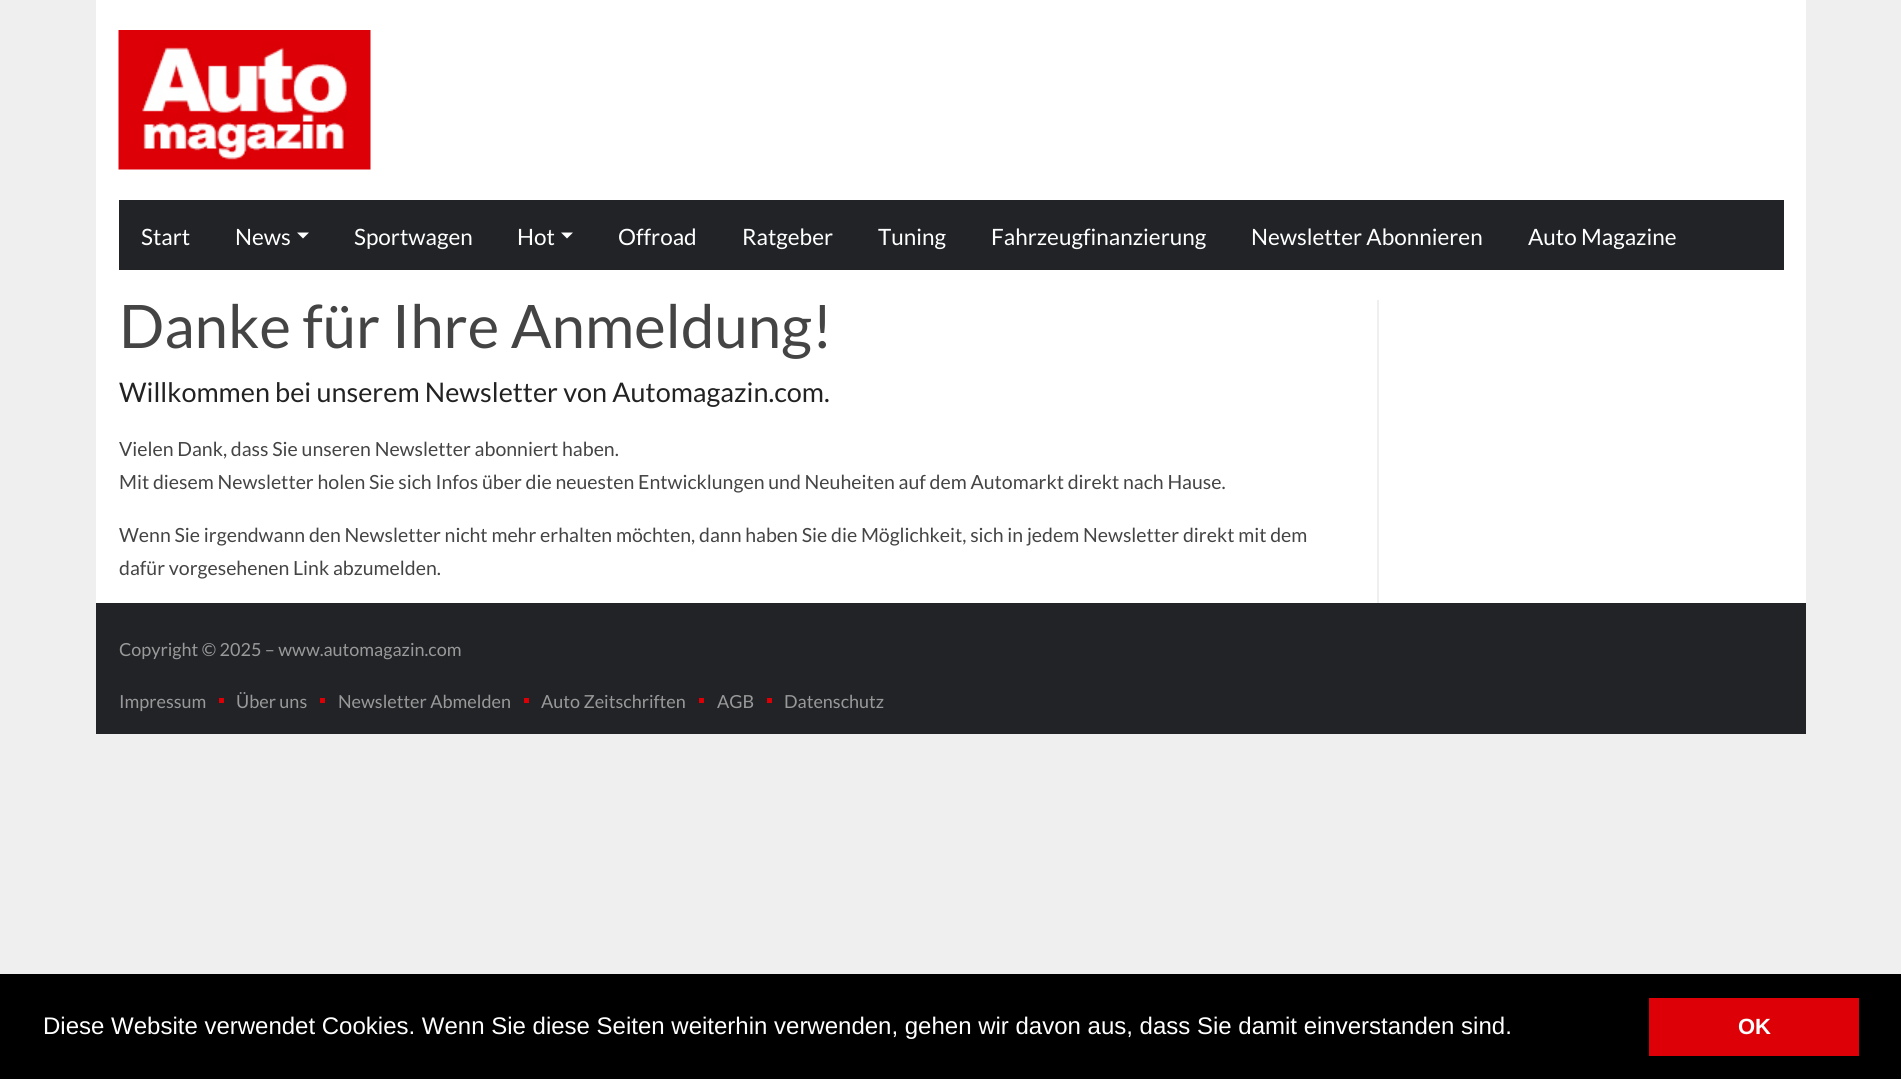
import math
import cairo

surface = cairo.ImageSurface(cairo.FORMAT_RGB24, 1901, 1079)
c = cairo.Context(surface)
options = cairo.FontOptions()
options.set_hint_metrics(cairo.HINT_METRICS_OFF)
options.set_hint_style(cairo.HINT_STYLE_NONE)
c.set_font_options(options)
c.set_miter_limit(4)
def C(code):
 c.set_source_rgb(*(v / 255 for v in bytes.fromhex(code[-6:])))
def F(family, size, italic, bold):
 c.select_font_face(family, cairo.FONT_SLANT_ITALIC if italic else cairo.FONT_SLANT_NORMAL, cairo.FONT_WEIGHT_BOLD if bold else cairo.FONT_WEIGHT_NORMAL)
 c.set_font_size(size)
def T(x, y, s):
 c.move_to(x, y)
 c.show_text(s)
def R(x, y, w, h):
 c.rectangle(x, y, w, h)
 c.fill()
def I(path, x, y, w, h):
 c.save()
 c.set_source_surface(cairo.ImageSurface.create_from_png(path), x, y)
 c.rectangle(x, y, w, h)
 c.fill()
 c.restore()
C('efefef')
c.paint()
C('ffffff')
R(96,0,1710,603)
I('1.png',118,30,253,140)
C('212327')
R(119,200,1665,70)
F('Lato',22.5,0,0)
C('ffffff')
T(141,245,'Start')
T(235,245,'News')
c.new_path()
c.move_to(297,232.5)
c.line_to(309,232.5)
c.line_to(303,238.5)
c.close_path()
c.fill()
T(354,245,'Sportwagen')
T(517,245,'Hot')
c.new_path()
c.move_to(561,232.5)
c.line_to(573,232.5)
c.line_to(567,238.5)
c.close_path()
c.fill()
T(618,245,'Offroad')
T(742,245,'Ratgeber')
T(878,245,'Tuning')
T(991,245,'Fahrzeugfinanzierung')
T(1251,245,'Newsletter Abonnieren')
T(1528,245,'Auto Magazine')
C('efefef')
R(1377,300,2,303)
F('Lato',60,0,0)
C('444444')
T(119,348,'Danke für Ihre Anmeldung!')
F('Lato',27,0,0)
C('222222')
T(119,402,'Willkommen bei unserem Newsletter von Automagazin.com.')
F('Lato',19.5,0,0)
C('444444')
T(119,456,'Vielen Dank, dass Sie unseren Newsletter abonniert haben.')
T(119,489,'Mit diesem Newsletter holen Sie sich Infos über die neuesten Entwicklungen und Neuheiten auf dem Automarkt direkt nach Hause.')
T(119,542,'Wenn Sie irgendwann den Newsletter nicht mehr erhalten möchten, dann haben Sie die Möglichkeit, sich in jedem Newsletter direkt mit dem')
T(119,575,'dafür vorgesehenen Link abzumelden.')
C('212327')
R(96,603,1710,131)
F('Lato',18,0,0)
C('999999')
T(119,656,'Copyright © 2025 – www.automagazin.com')
T(119,708,'Impressum')
C('dc0006')
R(219,698,5,5)
C('999999')
T(236,708,'Über uns')
C('dc0006')
R(320,698,5,5)
C('999999')
T(338,708,'Newsletter Abmelden')
C('dc0006')
R(524,698,5,5)
C('999999')
T(541,708,'Auto Zeitschriften')
C('dc0006')
R(699,698,5,5)
C('999999')
T(717,708,'AGB')
C('dc0006')
R(767,698,5,5)
C('999999')
T(784,708,'Datenschutz')
C('000000')
R(0,974,1901,105)
F('Liberation Sans',24,0,0)
C('ffffff')
T(43,1034,'Diese Website verwendet Cookies. Wenn Sie diese Seiten weiterhin verwenden, gehen wir davon aus, dass Sie damit einverstanden sind.')
C('dd0007')
R(1649,998,210,58)
F('Liberation Sans',22,0,1)
C('ffffff')
T(1738,1034,'OK')
surface.write_to_png('o.png')
